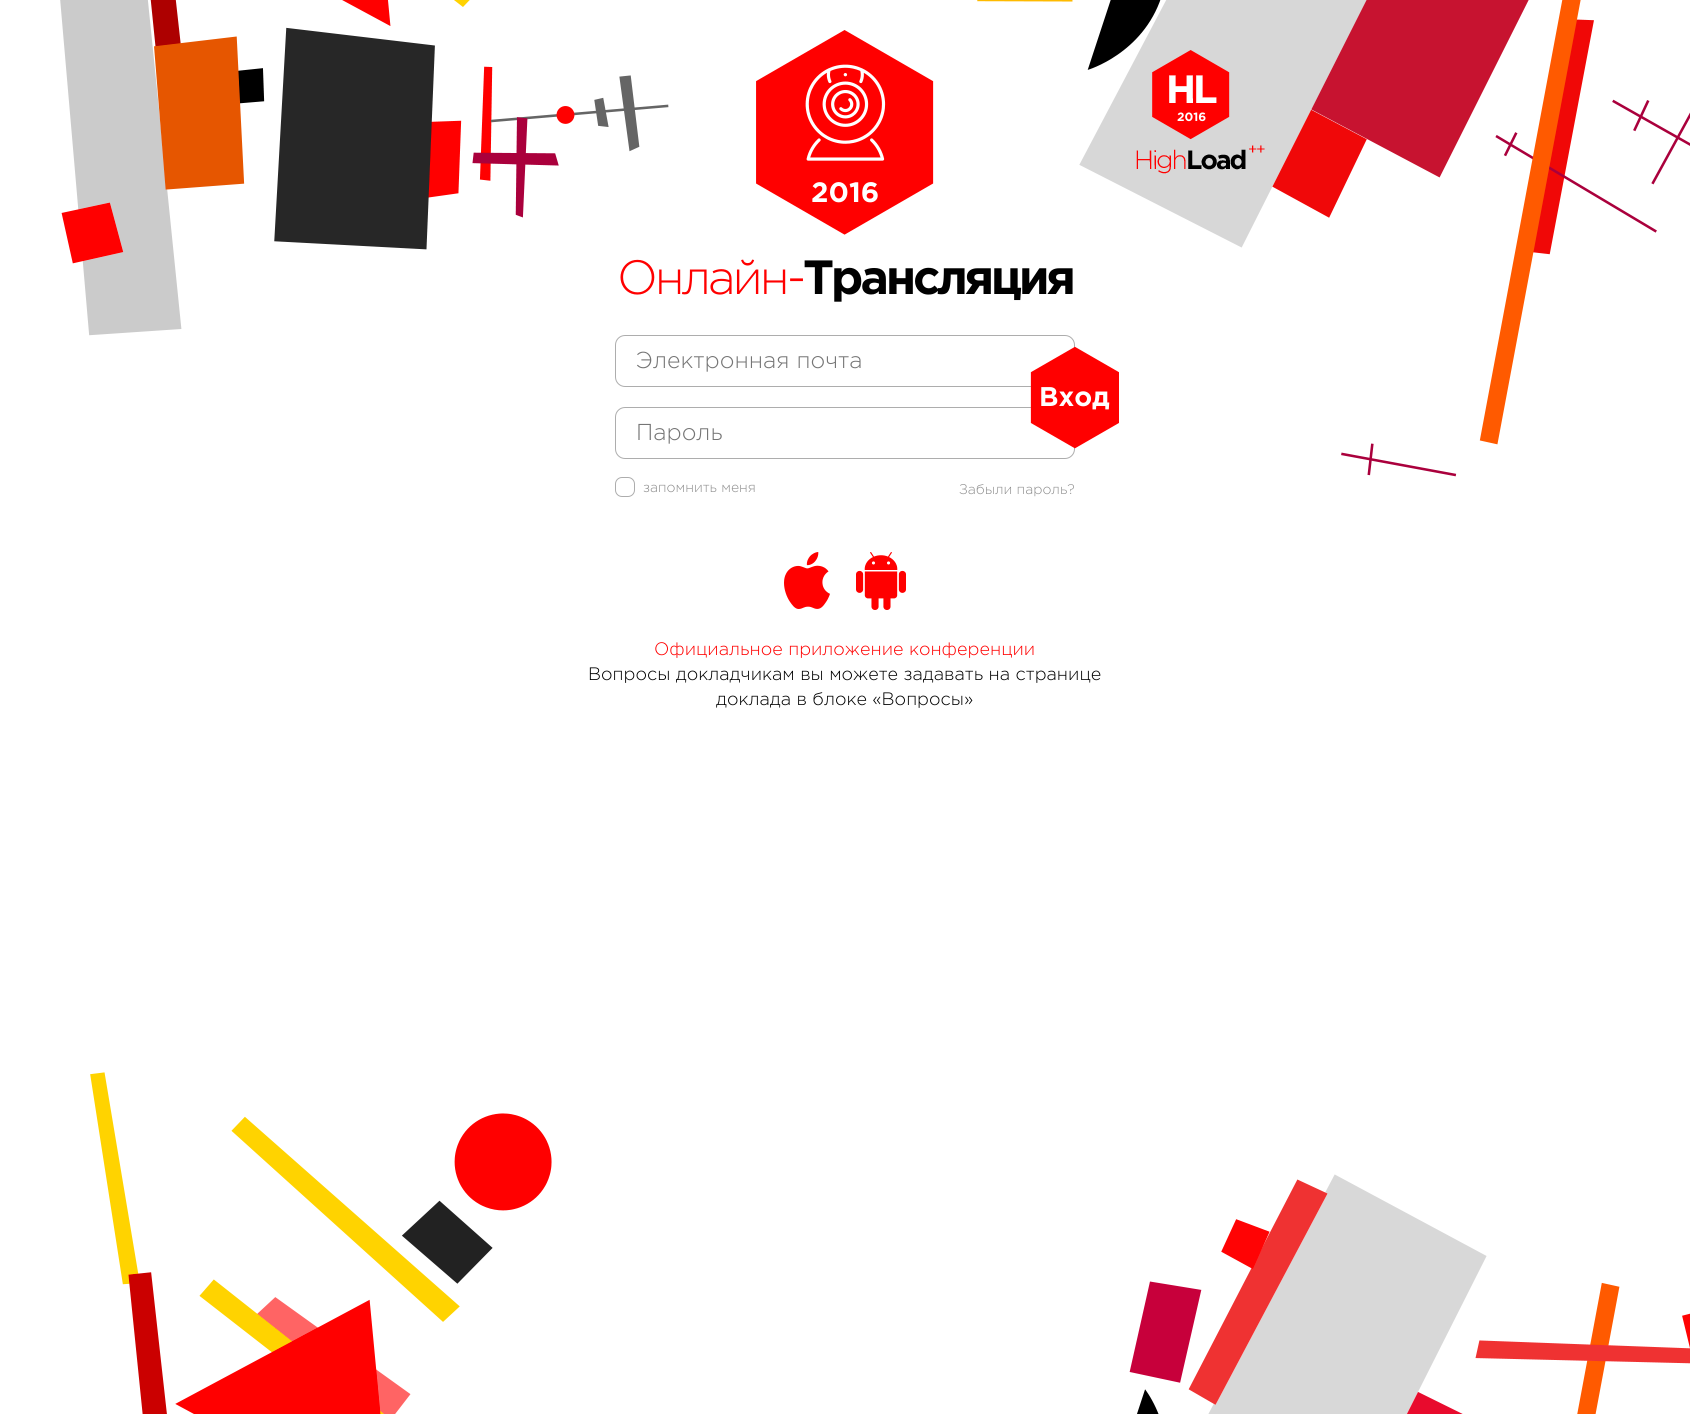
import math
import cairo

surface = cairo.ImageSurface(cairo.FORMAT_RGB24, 1690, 1414)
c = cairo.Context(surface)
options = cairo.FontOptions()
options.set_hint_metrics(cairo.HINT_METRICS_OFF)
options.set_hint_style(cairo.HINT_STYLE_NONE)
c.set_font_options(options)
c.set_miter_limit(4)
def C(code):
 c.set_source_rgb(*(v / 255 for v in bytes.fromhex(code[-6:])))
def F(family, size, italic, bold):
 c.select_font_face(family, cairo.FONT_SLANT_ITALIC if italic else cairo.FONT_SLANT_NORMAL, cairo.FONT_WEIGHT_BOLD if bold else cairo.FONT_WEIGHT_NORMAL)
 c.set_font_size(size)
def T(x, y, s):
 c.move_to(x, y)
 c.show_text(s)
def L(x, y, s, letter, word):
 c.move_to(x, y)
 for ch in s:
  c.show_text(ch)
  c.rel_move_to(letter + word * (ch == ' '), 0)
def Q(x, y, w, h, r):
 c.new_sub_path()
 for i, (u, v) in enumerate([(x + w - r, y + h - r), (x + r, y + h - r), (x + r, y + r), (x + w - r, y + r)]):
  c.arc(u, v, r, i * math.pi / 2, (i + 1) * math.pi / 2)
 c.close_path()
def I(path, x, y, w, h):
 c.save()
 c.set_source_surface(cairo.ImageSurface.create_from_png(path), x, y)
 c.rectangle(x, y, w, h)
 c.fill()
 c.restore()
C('ffffff')
c.paint()
I('1.png',60,0,1630,1414)
I('2.png',1136,50,129,124)
F('Gotham',12,0,1)
C('ffffff')
T(1177,121,'2016')
I('3.png',756,30,178,205)
F('Gotham',28,0,1)
T(811,202,'2016')
F('Gotham Light',48,0,0)
C('ff0000')
L(617,294,'Онлайн-',-3,0)
F('Gotham',48,0,1)
C('000000')
L(803,294,'Трансляция',-3,0)
Q(615.5,335.5,459,51,9.5)
C('adadad')
c.set_line_width(1)
c.stroke()
F('Gotham Light',23,0,0)
C('757575')
T(636,368,'Электронная почта')
Q(615.5,407.5,459,51,9.5)
C('adadad')
c.stroke()
I('4.png',1030,346,89,103)
F('Gotham',27,0,1)
C('ffffff')
T(1039,406,'Вход')
F('Gotham Light',23,0,0)
C('757575')
T(636,440,'Пароль')
Q(615.5,477.5,19,19,6.5)
C('adadad')
c.stroke()
F('Gotham Light',14,0,0)
C('8d8d8d')
T(643,492,'запомнить меня')
T(959,494,'Забыли пароль?')
I('5.png',784,552,46,57)
I('6.png',856,552,50,58)
F('Gotham Light',18,0,0)
C('ff0000')
T(654,655,'Официальное приложение конференции')
C('000000')
T(588,680,'Вопросы докладчикам вы можете задавать на странице')
T(716,705,'доклада в блоке «Вопросы»')
surface.write_to_png('o.png')
